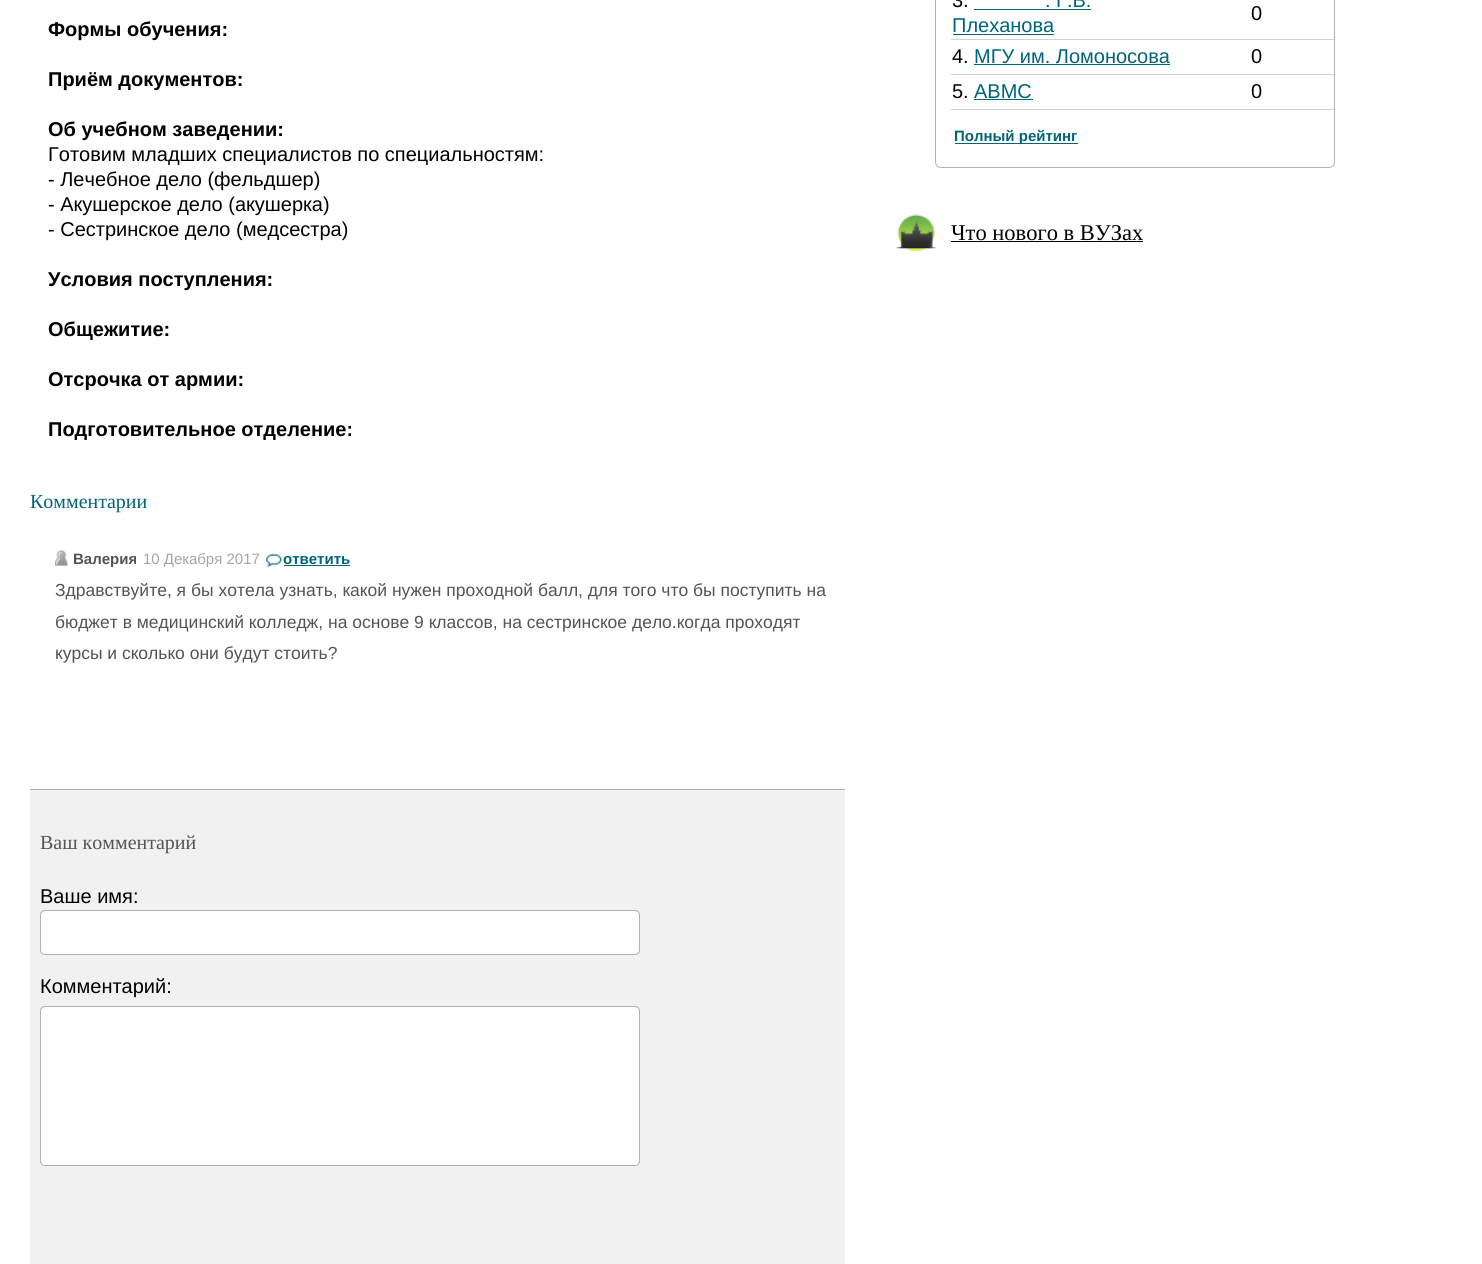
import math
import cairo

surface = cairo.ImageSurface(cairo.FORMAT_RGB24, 1482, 1264)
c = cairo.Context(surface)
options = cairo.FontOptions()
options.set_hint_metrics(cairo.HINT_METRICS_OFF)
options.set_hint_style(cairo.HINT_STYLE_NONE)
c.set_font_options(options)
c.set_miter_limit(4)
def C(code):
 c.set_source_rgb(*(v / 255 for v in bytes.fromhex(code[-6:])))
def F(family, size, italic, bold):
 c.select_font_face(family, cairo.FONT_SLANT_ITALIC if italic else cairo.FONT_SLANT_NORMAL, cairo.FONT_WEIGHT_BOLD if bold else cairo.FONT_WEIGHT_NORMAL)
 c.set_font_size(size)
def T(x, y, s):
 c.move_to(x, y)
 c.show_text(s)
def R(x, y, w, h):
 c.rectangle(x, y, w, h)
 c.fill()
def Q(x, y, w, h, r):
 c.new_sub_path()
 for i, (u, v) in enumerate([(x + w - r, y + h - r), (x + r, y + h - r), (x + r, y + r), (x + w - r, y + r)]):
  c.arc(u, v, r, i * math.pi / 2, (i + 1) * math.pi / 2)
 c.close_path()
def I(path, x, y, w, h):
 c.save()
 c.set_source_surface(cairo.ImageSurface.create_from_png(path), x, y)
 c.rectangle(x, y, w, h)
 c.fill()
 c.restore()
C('ffffff')
c.paint()
F('Liberation Sans',20,0,1)
C('000000')
T(48,36,'Формы обучения:')
T(48,86,'Приём документов:')
T(48,136,'Об учебном заведении:')
F('Liberation Sans',20,0,0)
T(48,161,'Готовим младших специалистов по специальностям:')
T(48,186,'- Лечебное дело (фельдшер)')
T(48,211,'- Акушерское дело (акушерка)')
T(48,236,'- Сестринское дело (медсестра)')
F('Liberation Sans',20,0,1)
T(48,286,'Условия поступления:')
T(48,336,'Общежитие:')
T(48,386,'Отсрочка от армии:')
T(48,436,'Подготовительное отделение:')
F('Liberation Serif',20,0,0)
C('006479')
T(30,508,'Комментарии')
I('1.png',55,549,13,17)
F('Liberation Sans',15,0,1)
C('555454')
T(73,564,'Валерия')
F('Liberation Sans',15,0,0)
C('a6a6a6')
T(143,564,'10 Декабря 2017')
I('2.png',266,553,16,14)
F('Liberation Sans',15,0,1)
C('006479')
T(283,564,'ответить')
R(284,565,66,1)
F('Liberation Sans',17.5,0,0)
C('555454')
T(55,596,'Здравствуйте, я бы хотела узнать, какой нужен проходной балл, для того что бы поступить на')
T(55,628,'бюджет в медицинский колледж, на основе 9 классов, на сестринское дело.когда проходят')
T(55,659,'курсы и сколько они будут стоить?')
C('f1f1f1')
R(30,790,815,474)
C('b1b1b1')
R(30,789,815,1)
F('Liberation Serif',20,0,0)
C('555454')
T(40,849,'Ваш комментарий')
F('Liberation Sans',20,0,0)
C('000000')
T(40,903,'Ваше имя:')
C('ffffff')
Q(40.5,910.5,599,44,4.5)
c.fill_preserve()
C('b1b1b1')
c.set_line_width(1)
c.stroke()
C('000000')
T(40,993,'Комментарий:')
C('ffffff')
Q(40.5,1006.5,599,159,4.5)
c.fill_preserve()
C('b1b1b1')
c.stroke()
Q(935.5,-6.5,399,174,5.5)
C('b3b3b3')
c.stroke()
C('000000')
T(952,7,'3.')
C('006479')
T(1045,7,'. Г.В.')
R(974,9,117,1)
T(952,32,'Плеханова')
R(953,34,101,1)
C('d2d2d2')
R(951,39,383,1)
C('000000')
T(1251,20,'0')
T(952,63,'4.')
C('006479')
T(974,63,'МГУ им. Ломоносова')
R(974,64,196,1)
C('d2d2d2')
R(951,74,383,1)
C('000000')
T(1251,63,'0')
T(952,98,'5.')
C('006479')
T(974,98,'АВМС')
R(974,99,59,1)
C('d2d2d2')
R(951,109,383,1)
C('000000')
T(1251,98,'0')
C('006479')
R(955,143,123,1)
F('Liberation Sans',15,0,1)
T(954,141,'Полный рейтинг')
I('3.png',896,214,41,37)
F('Liberation Serif',22.5,0,0)
C('000000')
T(951,240,'Что нового в ВУЗах')
R(951,241,192,1)
surface.write_to_png('o.png')
